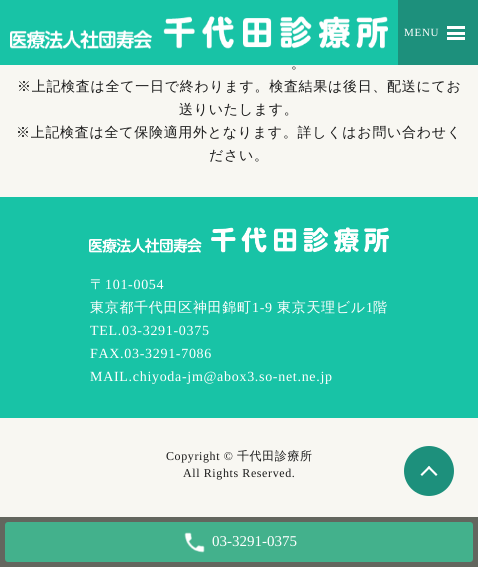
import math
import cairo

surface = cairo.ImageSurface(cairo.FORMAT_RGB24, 478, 567)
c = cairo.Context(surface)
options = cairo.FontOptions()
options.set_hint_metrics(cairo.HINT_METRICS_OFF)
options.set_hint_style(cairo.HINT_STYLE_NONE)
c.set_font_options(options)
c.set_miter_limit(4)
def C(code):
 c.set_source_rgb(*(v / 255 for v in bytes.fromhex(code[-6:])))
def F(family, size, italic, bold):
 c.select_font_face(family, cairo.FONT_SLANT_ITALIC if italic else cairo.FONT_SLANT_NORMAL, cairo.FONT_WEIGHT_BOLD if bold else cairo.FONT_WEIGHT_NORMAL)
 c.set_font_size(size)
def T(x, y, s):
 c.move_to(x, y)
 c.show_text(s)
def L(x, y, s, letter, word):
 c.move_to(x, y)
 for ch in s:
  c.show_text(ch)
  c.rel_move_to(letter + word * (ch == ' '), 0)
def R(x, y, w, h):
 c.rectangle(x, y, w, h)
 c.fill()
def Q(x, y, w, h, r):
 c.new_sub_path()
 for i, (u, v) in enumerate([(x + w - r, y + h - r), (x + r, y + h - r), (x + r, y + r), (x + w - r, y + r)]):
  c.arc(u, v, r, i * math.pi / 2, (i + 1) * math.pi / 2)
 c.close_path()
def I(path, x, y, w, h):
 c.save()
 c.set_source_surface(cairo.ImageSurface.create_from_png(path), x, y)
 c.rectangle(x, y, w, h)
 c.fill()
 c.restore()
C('f8f7f2')
c.paint()
C('18c3a6')
R(0,0,398,65)
I('1.png',10,16,378,33)
C('1d907c')
R(398,0,80,65)
F('Liberation Serif',11,0,0)
C('ffffff')
L(404,36,'MENU',.7,0)
R(447,26,18,3)
R(447,37,18,3)
R(447,32,18,3)
F('WenQuanYi Zen Hei Medium',14,0,0)
C('1b1b1b')
L(291,68,'。',.7,0)
L(17,91,'※上記検査は全て一日で終わります。検査結果は後日、配送にてお',.7,0)
L(179,114,'送りいたします。',.7,0)
L(16,137,'※上記検査は全て保険適用外となります。詳しくはお問い合わせく',.7,0)
L(209,160,'ださい。',.7,0)
C('18c3a6')
R(0,197,478,221)
I('2.png',89,227,300,26)
C('ffffff')
L(90,289,'〒',.7,0)
F('Liberation Serif',14,0,0)
L(105,289,'101-0054',.7,0)
F('WenQuanYi Zen Hei Medium',14,0,0)
L(90,312,'東京都千代田区神田錦町',.7,0)
F('Liberation Serif',14,0,0)
L(252,312,'1-9',.7,0)
F('WenQuanYi Zen Hei Medium',14,0,0)
L(277,312,'東京天理ビル',.7,0)
F('Liberation Serif',14,0,0)
L(366,312,'1',.7,0)
F('WenQuanYi Zen Hei Medium',14,0,0)
L(373,312,'階',.7,0)
F('Liberation Serif',14,0,0)
L(90,335,'TEL.03-3291-0375',.7,0)
L(90,358,'FAX.03-3291-7086',.7,0)
L(90,381,'MAIL.chiyoda-jm@abox3.so-net.ne.jp',.7,0)
F('Liberation Serif',12,0,0)
C('1b1b1b')
L(166,460,'Copyright ©',.6,0)
F('WenQuanYi Zen Hei Medium',12,0,0)
L(237,460,'千代田診療所',.6,0)
F('Liberation Serif',12,0,0)
L(183,477,'All Rights Reserved.',.6,0)
C('1d907c')
c.new_path()
c.arc(429,471,25,0,2 * math.pi)
c.fill()
C('ffffff')
c.new_path()
c.move_to(429,466)
c.line_to(437.5,474.5)
c.line_to(436,476)
c.line_to(427.5,467.5)
c.close_path()
c.fill()
c.new_path()
c.move_to(429,466)
c.line_to(430.5,467.5)
c.line_to(422,476)
c.line_to(420.5,474.5)
c.close_path()
c.fill()
C('63665e')
R(0,517,478,50)
C('43b18c')
Q(5,522,468,40,3)
c.fill()
I('3.png',184,532,21,21)
F('Liberation Serif',15,0,0)
C('ffffff')
T(212,546,'03-3291-0375')
surface.write_to_png('o.png')
